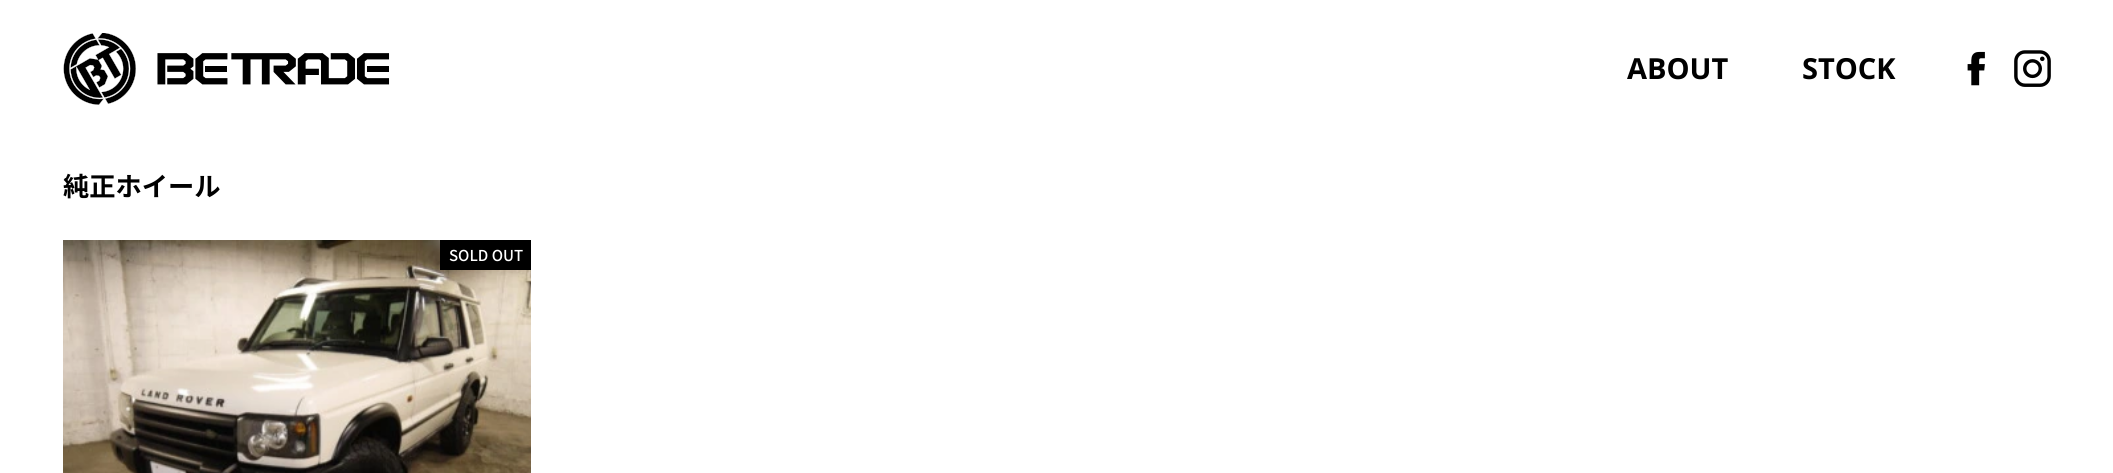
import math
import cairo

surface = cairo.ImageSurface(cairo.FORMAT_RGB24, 2113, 473)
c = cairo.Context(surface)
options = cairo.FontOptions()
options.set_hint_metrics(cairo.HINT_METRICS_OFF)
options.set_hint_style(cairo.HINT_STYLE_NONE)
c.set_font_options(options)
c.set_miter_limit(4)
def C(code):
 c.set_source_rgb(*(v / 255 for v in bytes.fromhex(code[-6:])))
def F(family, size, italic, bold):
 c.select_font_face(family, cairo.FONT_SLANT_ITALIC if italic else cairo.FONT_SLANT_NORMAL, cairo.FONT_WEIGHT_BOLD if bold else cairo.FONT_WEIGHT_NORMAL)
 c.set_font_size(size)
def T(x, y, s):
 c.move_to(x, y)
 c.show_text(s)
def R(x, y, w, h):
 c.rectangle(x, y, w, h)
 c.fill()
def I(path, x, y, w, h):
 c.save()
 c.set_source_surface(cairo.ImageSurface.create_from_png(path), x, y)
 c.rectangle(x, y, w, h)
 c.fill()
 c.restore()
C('ffffff')
c.paint()
I('1.png',63,33,327,72)
F('Open Sans',29,0,1)
C('000000')
T(1627,79,'ABOUT')
T(1802,79,'STOCK')
I('2.png',1967,51,18,35)
I('3.png',2014,50,37,37)
F('Noto Sans JP',26.25,0,1)
T(63,196,'純正ホイール')
I('4.png',63,240,468,233)
R(440,240,91,30)
F('Noto Sans JP Medium',15,0,0)
C('ffffff')
T(449,261,'SOLD OUT')
surface.write_to_png('o.png')
